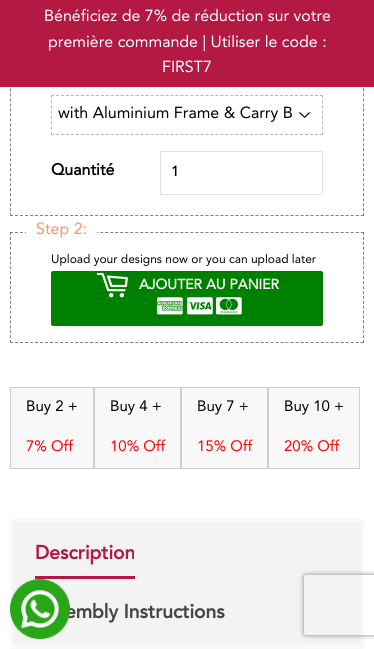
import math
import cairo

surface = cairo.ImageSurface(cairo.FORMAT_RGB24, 374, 649)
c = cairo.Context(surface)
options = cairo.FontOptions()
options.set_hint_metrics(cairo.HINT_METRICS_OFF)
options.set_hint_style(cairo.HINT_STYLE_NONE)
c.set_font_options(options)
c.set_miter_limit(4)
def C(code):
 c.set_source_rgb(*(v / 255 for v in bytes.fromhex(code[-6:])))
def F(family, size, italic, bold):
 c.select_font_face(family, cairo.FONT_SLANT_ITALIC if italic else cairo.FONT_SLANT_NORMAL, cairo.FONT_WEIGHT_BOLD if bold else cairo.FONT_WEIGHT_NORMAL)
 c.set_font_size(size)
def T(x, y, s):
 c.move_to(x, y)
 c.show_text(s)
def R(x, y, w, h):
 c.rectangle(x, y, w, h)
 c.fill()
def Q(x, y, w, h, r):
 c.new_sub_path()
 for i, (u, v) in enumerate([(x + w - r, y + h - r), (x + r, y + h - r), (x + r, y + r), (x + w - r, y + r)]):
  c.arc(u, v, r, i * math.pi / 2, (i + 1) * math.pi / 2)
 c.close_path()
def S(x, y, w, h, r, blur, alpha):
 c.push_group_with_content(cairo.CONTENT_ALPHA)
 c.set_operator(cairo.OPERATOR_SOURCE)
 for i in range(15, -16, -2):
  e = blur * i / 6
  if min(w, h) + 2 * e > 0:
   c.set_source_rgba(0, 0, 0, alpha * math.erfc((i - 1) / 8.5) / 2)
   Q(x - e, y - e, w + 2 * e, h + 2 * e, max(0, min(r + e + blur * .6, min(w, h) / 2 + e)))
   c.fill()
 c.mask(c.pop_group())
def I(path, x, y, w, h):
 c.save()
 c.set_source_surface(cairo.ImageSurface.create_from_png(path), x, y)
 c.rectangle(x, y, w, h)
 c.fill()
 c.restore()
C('ffffff')
c.paint()
c.new_path()
c.move_to(363.5,-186)
c.line_to(363.5,216)
C('808080')
c.set_line_width(1)
c.set_dash([3,1.99])
c.stroke()
c.new_path()
c.move_to(10,215.5)
c.line_to(364,215.5)
c.set_dash([3,2.01])
c.stroke()
c.new_path()
c.move_to(10.5,-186)
c.line_to(10.5,216)
c.set_dash([3,1.99])
c.stroke()
C('b31942')
R(0,0,374,87)
F('Avenir',16,0,0)
C('ffffff')
T(44,21,'Bénéficiez de 7% de réduction sur votre')
T(48,47,'première commande | Utiliser le code :')
T(162,72,'FIRST7')
I('1.png',299,112,11,6)
c.new_path()
c.move_to(51,95.5)
c.line_to(323,95.5)
C('b5b5b5')
c.set_dash([3,1.98])
c.stroke()
c.new_path()
c.move_to(322.5,95)
c.line_to(322.5,135)
c.set_dash([3,2.29])
c.stroke()
c.new_path()
c.move_to(51,134.5)
c.line_to(323,134.5)
c.set_dash([3,1.98])
c.stroke()
c.new_path()
c.move_to(51.5,95)
c.line_to(51.5,135)
c.set_dash([3,2.29])
c.stroke()
C('000000')
T(58,118,'with Aluminium Frame & Carry B')
F('Avenir',16,0,1)
T(51,175,'Quantité')
Q(160.5,151.5,162,43,1.5)
C('dedede')
c.set_dash([])
c.stroke()
F('Avenir',14,0,1)
C('000000')
T(171,176,'1')
c.new_path()
c.move_to(10,232.5)
c.line_to(364,232.5)
C('808080')
c.set_dash([3,2.01])
c.stroke()
c.new_path()
c.move_to(363.5,232)
c.line_to(363.5,343)
c.set_dash([3,1.91])
c.stroke()
c.new_path()
c.move_to(10,342.5)
c.line_to(364,342.5)
c.set_dash([3,2.01])
c.stroke()
c.new_path()
c.move_to(10.5,232)
c.line_to(10.5,343)
c.set_dash([3,1.91])
c.stroke()
C('ffffff')
R(26,232,71,1)
F('Avenir',16,0,0)
C('ff935b')
T(36,234,'Step 2:')
F('Avenir',12,0,0)
C('000000')
T(51,263,'Upload your designs now or you can upload later')
C('008000')
Q(51,271,272,55,2)
c.fill()
I('2.png',96,272,32,26)
F('Avenir',14,0,1)
C('ffffff')
T(139,289,'AJOUTER AU PANIER')
I('3.png',157,297,26,18)
I('4.png',187,297,26,18)
I('5.png',216,297,26,18)
C('f8f8f8')
c.rectangle(10.5,387.5,83,81)
c.fill_preserve()
C('cccccc')
c.set_dash([])
c.stroke()
F('Avenir',15,0,0)
C('000000')
T(26,411,'Buy 2 +')
C('fd0000')
T(26,451,'7% Off')
C('f8f8f8')
c.rectangle(94.5,387.5,86,81)
c.fill_preserve()
C('cccccc')
c.stroke()
C('000000')
T(110,411,'Buy 4 +')
C('fd0000')
T(110,451,'10% Off')
C('f8f8f8')
c.rectangle(181.5,387.5,86,81)
c.fill_preserve()
C('cccccc')
c.stroke()
C('000000')
T(197,411,'Buy 7 +')
C('fd0000')
T(197,451,'15% Off')
C('f8f8f8')
c.rectangle(268.5,387.5,91,81)
c.fill_preserve()
C('cccccc')
c.stroke()
C('000000')
T(284,411,'Buy 10 +')
C('fd0000')
T(284,451,'20% Off')
C('f9f9f9')
R(10,519,354,130)
C('f3f3f3')
Q(13,522,348,122,3)
c.fill()
F('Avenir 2',19.25,0,1)
C('b31942')
T(35,559,'Description')
R(35,576,100,3)
C('454545')
T(65,618,'embly Instructions')
I('6.png',10,579,60,60)
c.save()
c.set_fill_rule(cairo.FILL_RULE_EVEN_ODD)
c.new_path()
c.move_to(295,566)
c.line_to(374,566)
c.line_to(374,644)
c.line_to(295,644)
c.close_path()
c.move_to(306,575)
c.line_to(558,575)
c.curve_to(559,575,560,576,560,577)
c.line_to(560,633)
c.curve_to(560,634,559,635,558,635)
c.line_to(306,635)
c.curve_to(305,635,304,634,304,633)
c.line_to(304,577)
c.curve_to(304,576,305,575,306,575)
c.close_path()
c.clip()
C('808080')
S(304,575,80,60,2,2.5,1)
c.restore()
surface.write_to_png('o.png')
